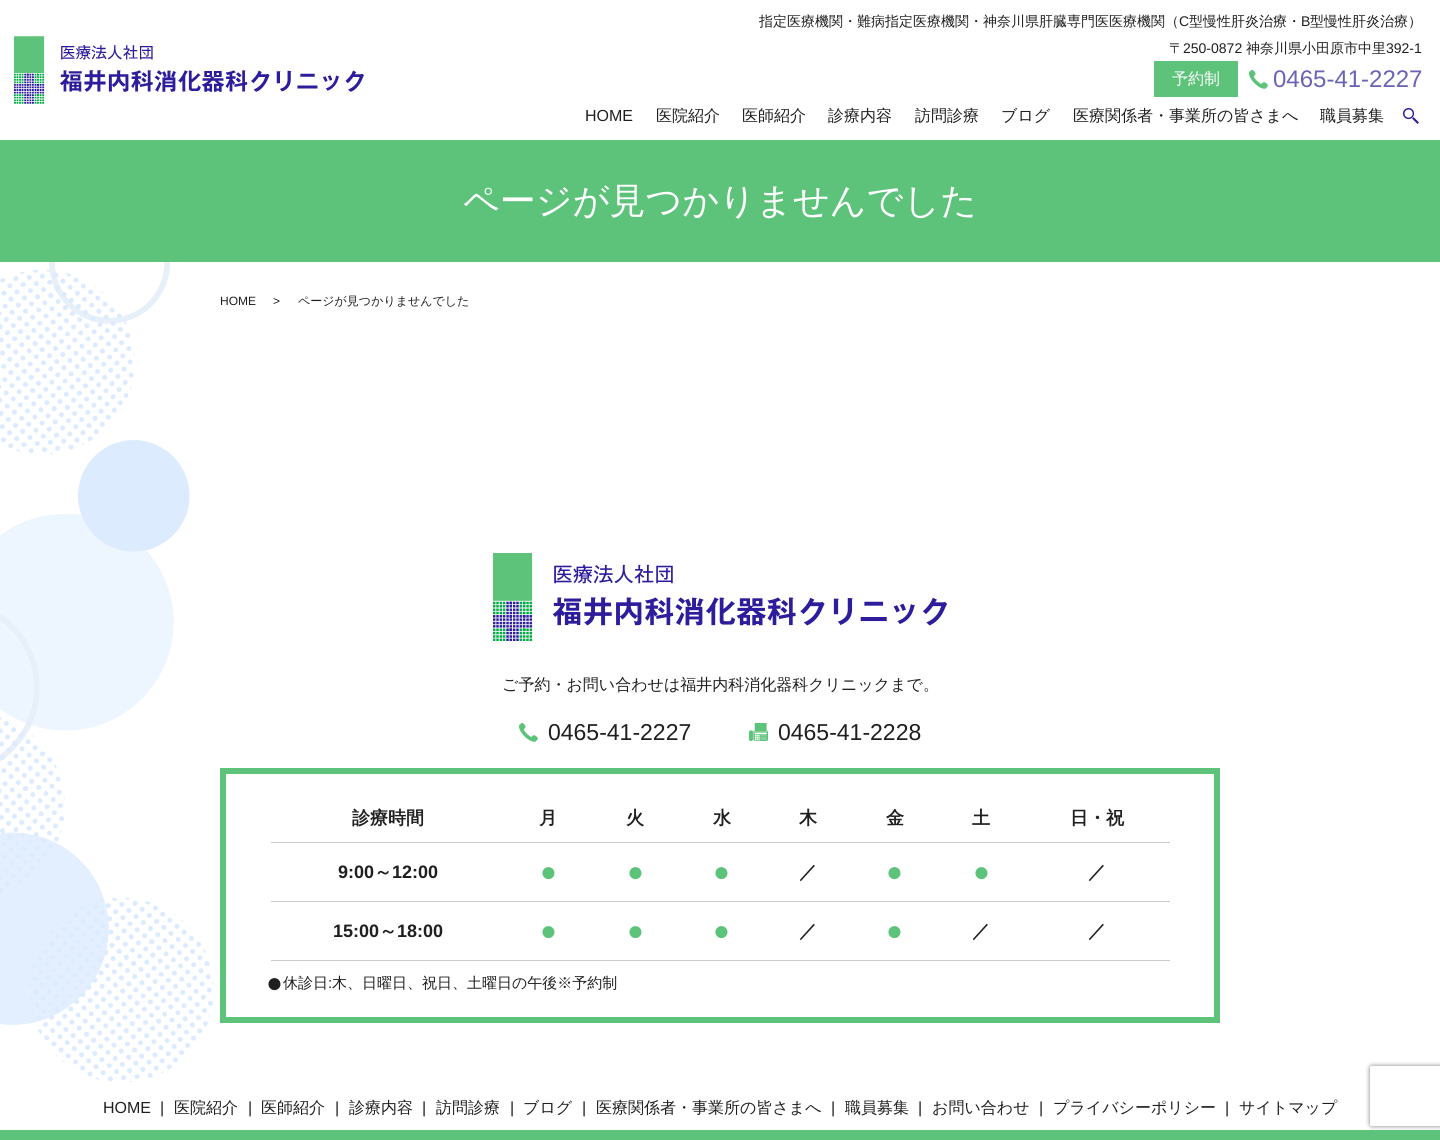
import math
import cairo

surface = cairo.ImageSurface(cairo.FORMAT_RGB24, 1440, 1140)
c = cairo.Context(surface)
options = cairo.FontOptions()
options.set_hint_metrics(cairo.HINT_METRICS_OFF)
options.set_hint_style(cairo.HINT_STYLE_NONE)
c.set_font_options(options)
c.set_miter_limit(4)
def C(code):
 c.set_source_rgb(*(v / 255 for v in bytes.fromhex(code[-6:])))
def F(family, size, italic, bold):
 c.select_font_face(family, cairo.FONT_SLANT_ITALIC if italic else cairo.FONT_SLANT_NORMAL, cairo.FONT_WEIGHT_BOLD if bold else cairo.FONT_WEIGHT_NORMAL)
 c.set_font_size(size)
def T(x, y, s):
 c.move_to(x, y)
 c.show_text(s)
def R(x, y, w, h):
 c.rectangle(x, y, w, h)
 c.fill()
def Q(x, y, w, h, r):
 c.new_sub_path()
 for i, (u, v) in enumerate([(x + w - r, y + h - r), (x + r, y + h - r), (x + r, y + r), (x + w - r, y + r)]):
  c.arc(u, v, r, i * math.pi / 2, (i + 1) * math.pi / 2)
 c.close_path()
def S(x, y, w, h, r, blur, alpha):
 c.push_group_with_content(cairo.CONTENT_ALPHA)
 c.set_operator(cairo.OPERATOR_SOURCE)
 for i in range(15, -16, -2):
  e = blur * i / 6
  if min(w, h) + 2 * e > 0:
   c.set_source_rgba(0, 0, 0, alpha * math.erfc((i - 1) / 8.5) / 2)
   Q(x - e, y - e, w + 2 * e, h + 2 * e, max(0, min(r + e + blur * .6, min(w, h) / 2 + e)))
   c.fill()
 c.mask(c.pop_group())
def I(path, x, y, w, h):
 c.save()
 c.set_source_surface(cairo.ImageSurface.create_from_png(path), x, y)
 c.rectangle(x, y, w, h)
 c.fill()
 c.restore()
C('ffffff')
c.paint()
I('1.png',14,36,350,68)
F('WenQuanYi Zen Hei Medium',14,0,0)
C('1f1f1f')
T(759,26,'指定医療機関・難病指定医療機関・神奈川県肝臓専門医医療機関（')
F('Liberation Sans',14,0,0)
T(1179,26,'C')
F('WenQuanYi Zen Hei Medium',14,0,0)
T(1189,26,'型慢性肝炎治療・')
F('Liberation Sans',14,0,0)
T(1301,26,'B')
F('WenQuanYi Zen Hei Medium',14,0,0)
T(1310,26,'型慢性肝炎治療）')
T(1169,53,'〒')
F('Liberation Sans',14,0,0)
T(1183,53,'250-0872')
F('WenQuanYi Zen Hei Medium',14,0,0)
T(1246,53,'神奈川県小田原市中里')
F('Liberation Sans',14,0,0)
T(1386,53,'392-1')
C('5dc37a')
R(1154,61,84,36)
F('WenQuanYi Zen Hei Medium',16,0,0)
C('ffffff')
T(1172,84,'予約制')
I('2.png',1249,70,19,19)
F('Liberation Sans',24,0,0)
C('6b63b3')
T(1273,87,'0465-41-2227')
F('Liberation Sans',16,0,0)
C('1f1f1f')
T(585,121,'HOME')
F('WenQuanYi Zen Hei Medium',16,0,0)
T(656,121,'医院紹介')
T(742,121,'医師紹介')
T(828,121,'診療内容')
T(915,121,'訪問診療')
T(1001,121,'ブログ')
T(1073,121,'医療関係者・事業所の皆さまへ')
T(1320,121,'職員募集')
I('3.png',1403,108,16,16)
C('5dc37a')
R(0,140,1440,122)
F('WenQuanYi Zen Hei Medium',36,0,0)
C('ffffff')
T(463,213,'ページが見つかりませんでした')
F('Liberation Sans',12,0,0)
C('1f1f1f')
T(220,305,'HOME')
T(273,305,'>')
F('WenQuanYi Zen Hei Medium',12,0,0)
T(298,305,'ページが見つかりませんでした')
I('4.png',0,262,214,820)
I('5.png',493,553,454,88)
F('WenQuanYi Zen Hei Medium',16,0,0)
T(502,690,'ご予約・お問い合わせは福井内科消化器科クリニックまで。')
I('2.png',519,723,19,19)
F('Liberation Sans',23,0,0)
T(548,740,'0465-41-2227')
I('6.png',749,723,19,18)
T(778,740,'0465-41-2228')
c.rectangle(223,771,994,249)
C('5dc37a')
c.set_line_width(6)
c.stroke()
F('WenQuanYi Zen Hei',18,0,1)
C('1f1f1f')
T(352,824,'診療時間')
T(539,824,'月')
T(626,824,'火')
T(713,824,'水')
T(799,824,'木')
T(886,824,'金')
T(972,824,'土')
C('cbcbcb')
R(271,842,899,1)
C('1f1f1f')
T(1070,824,'日・祝')
F('Liberation Sans',18,0,1)
T(338,878,'9:00')
F('WenQuanYi Zen Hei',18,0,1)
T(374,878,'～')
F('Liberation Sans',18,0,1)
T(392,878,'12:00')
F('Liberation Sans',28,0,1)
C('5dc37a')
T(540,881,'●')
T(627,881,'●')
T(713,881,'●')
F('WenQuanYi Zen Hei',18,0,1)
C('1f1f1f')
T(799,878,'／')
F('Liberation Sans',28,0,1)
C('5dc37a')
T(886,881,'●')
T(973,881,'●')
C('cbcbcb')
R(271,901,899,1)
F('WenQuanYi Zen Hei',18,0,1)
C('1f1f1f')
T(1088,878,'／')
F('Liberation Sans',18,0,1)
T(333,937,'15:00')
F('WenQuanYi Zen Hei',18,0,1)
T(379,937,'～')
F('Liberation Sans',18,0,1)
T(397,937,'18:00')
F('Liberation Sans',28,0,1)
C('5dc37a')
T(540,940,'●')
T(627,940,'●')
T(713,940,'●')
F('WenQuanYi Zen Hei',18,0,1)
C('1f1f1f')
T(799,937,'／')
F('Liberation Sans',28,0,1)
C('5dc37a')
T(886,940,'●')
F('WenQuanYi Zen Hei',18,0,1)
C('1f1f1f')
T(972,937,'／')
C('cbcbcb')
R(271,960,899,1)
C('1f1f1f')
T(1088,937,'／')
F('Liberation Sans',28,0,0)
T(266,992,'●')
F('WenQuanYi Zen Hei Medium',15,0,0)
T(283,988,'休診日')
F('Liberation Sans',15,0,0)
T(328,988,':')
F('WenQuanYi Zen Hei Medium',15,0,0)
T(332,988,'木、日曜日、祝日、土曜日の午後※予約制')
F('Liberation Sans',16,0,0)
T(103,1113,'HOME')
T(160,1113,'|')
F('WenQuanYi Zen Hei Medium',16,0,0)
T(174,1113,'医院紹介')
F('Liberation Sans',16,0,0)
T(248,1113,'|')
F('WenQuanYi Zen Hei Medium',16,0,0)
T(261,1113,'医師紹介')
F('Liberation Sans',16,0,0)
T(335,1113,'|')
F('WenQuanYi Zen Hei Medium',16,0,0)
T(349,1113,'診療内容')
F('Liberation Sans',16,0,0)
T(422,1113,'|')
F('WenQuanYi Zen Hei Medium',16,0,0)
T(436,1113,'訪問診療')
F('Liberation Sans',16,0,0)
T(510,1113,'|')
F('WenQuanYi Zen Hei Medium',16,0,0)
T(523,1113,'ブログ')
F('Liberation Sans',16,0,0)
T(582,1113,'|')
F('WenQuanYi Zen Hei Medium',16,0,0)
T(596,1113,'医療関係者・事業所の皆さまへ')
F('Liberation Sans',16,0,0)
T(831,1113,'|')
F('WenQuanYi Zen Hei Medium',16,0,0)
T(845,1113,'職員募集')
F('Liberation Sans',16,0,0)
T(918,1113,'|')
F('WenQuanYi Zen Hei Medium',16,0,0)
T(932,1113,'お問い合わせ')
F('Liberation Sans',16,0,0)
T(1039,1113,'|')
F('WenQuanYi Zen Hei Medium',16,0,0)
T(1053,1113,'プライバシーポリシー')
F('Liberation Sans',16,0,0)
T(1225,1113,'|')
F('WenQuanYi Zen Hei Medium',16,0,0)
T(1239,1113,'サイトマップ')
C('5dc37a')
R(0,1130,1440,10)
c.save()
c.set_fill_rule(cairo.FILL_RULE_EVEN_ODD)
c.new_path()
c.move_to(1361,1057)
c.line_to(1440,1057)
c.line_to(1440,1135)
c.line_to(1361,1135)
c.close_path()
c.move_to(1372,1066)
c.line_to(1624,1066)
c.curve_to(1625,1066,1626,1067,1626,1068)
c.line_to(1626,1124)
c.curve_to(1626,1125,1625,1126,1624,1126)
c.line_to(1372,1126)
c.curve_to(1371,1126,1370,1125,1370,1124)
c.line_to(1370,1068)
c.curve_to(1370,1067,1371,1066,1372,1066)
c.close_path()
c.clip()
C('808080')
S(1370,1066,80,60,2,2.5,1)
c.restore()
surface.write_to_png('o.png')
